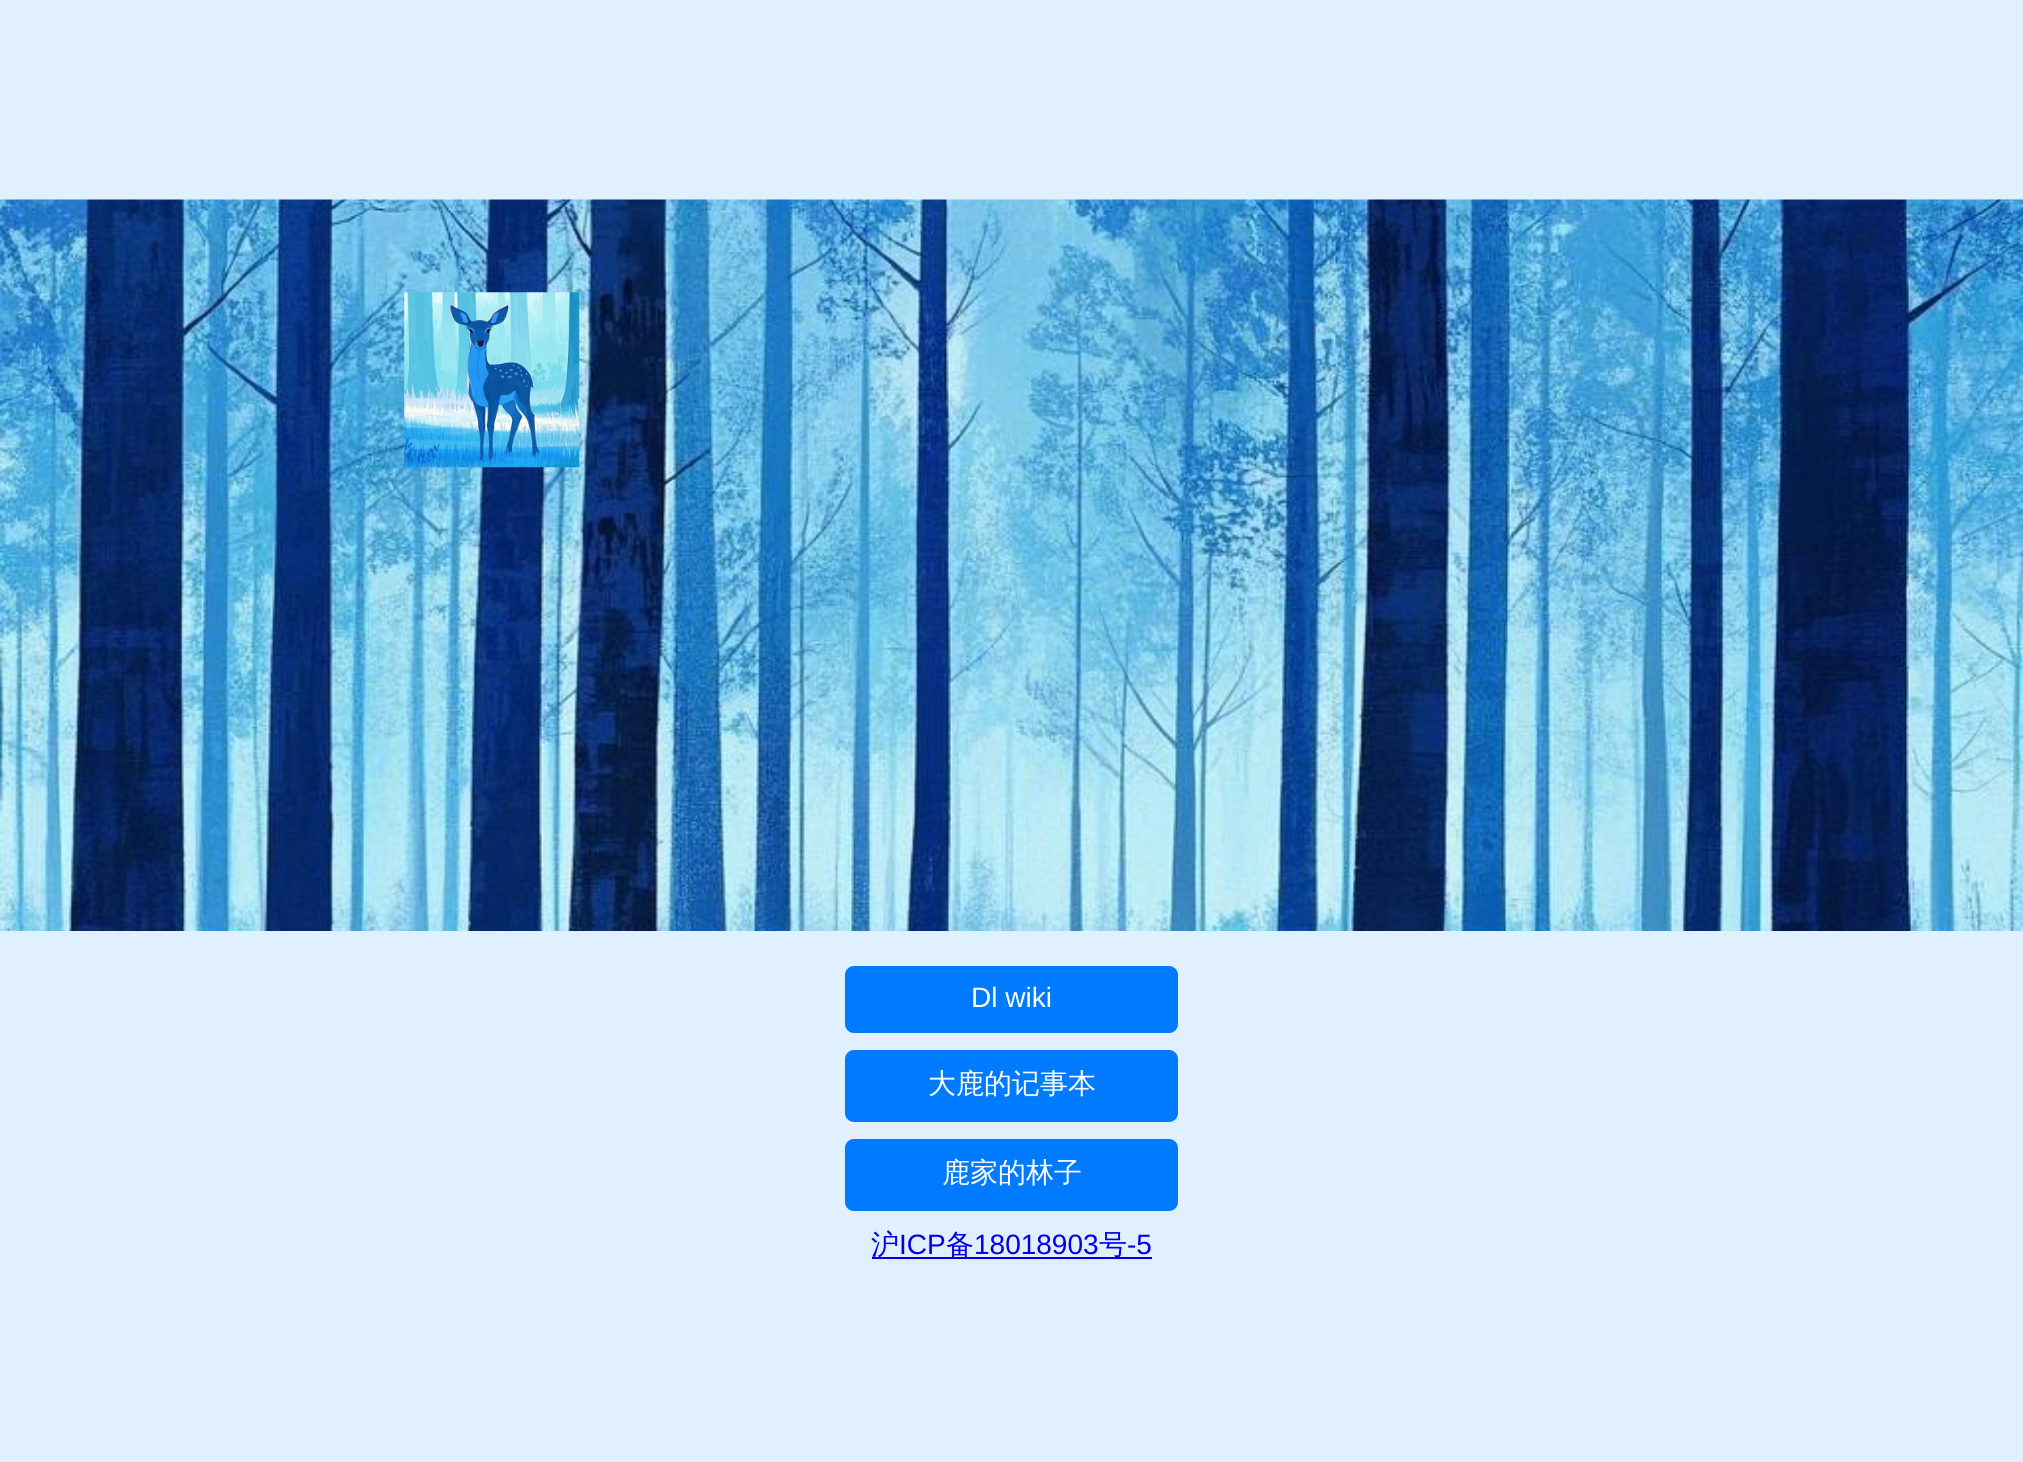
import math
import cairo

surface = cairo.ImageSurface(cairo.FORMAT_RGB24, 2023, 1462)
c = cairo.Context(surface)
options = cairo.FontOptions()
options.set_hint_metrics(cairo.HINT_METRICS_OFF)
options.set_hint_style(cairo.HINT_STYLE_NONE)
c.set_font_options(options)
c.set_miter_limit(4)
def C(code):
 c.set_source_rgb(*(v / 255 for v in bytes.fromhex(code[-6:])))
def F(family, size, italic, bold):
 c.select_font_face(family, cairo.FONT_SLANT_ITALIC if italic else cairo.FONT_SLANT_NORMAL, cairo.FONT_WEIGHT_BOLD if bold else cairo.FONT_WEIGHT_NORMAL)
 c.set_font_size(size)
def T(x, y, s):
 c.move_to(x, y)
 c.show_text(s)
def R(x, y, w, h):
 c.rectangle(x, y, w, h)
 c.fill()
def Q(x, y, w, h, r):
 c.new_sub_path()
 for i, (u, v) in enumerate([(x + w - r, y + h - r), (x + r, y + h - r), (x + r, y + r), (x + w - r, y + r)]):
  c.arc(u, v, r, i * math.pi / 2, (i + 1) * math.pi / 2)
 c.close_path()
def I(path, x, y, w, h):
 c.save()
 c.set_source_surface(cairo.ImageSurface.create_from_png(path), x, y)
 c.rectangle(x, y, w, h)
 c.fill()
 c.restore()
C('e0f0ff')
c.paint()
I('1.png',0,199,2023,732)
I('2.png',404,292,176,176)
C('007bff')
Q(845,966,333,67,9)
c.fill()
F('Liberation Sans',28,0,0)
C('ffffff')
T(971,1007,'Dl wiki')
C('007bff')
Q(845,1050,333,72,9)
c.fill()
F('WenQuanYi Zen Hei Medium',28,0,0)
C('ffffff')
T(928,1093,'大鹿的记事本')
C('007bff')
Q(845,1139,333,72,9)
c.fill()
C('ffffff')
T(942,1182,'鹿家的林子')
C('0000ee')
R(872,1257,280,2)
T(871,1254,'沪')
F('Liberation Sans',28,0,0)
T(899,1254,'ICP')
F('WenQuanYi Zen Hei Medium',28,0,0)
T(946,1254,'备')
F('Liberation Sans',28,0,0)
T(974,1254,'18018903')
F('WenQuanYi Zen Hei Medium',28,0,0)
T(1099,1254,'号')
F('Liberation Sans',28,0,0)
T(1127,1254,'-5')
surface.write_to_png('o.png')
